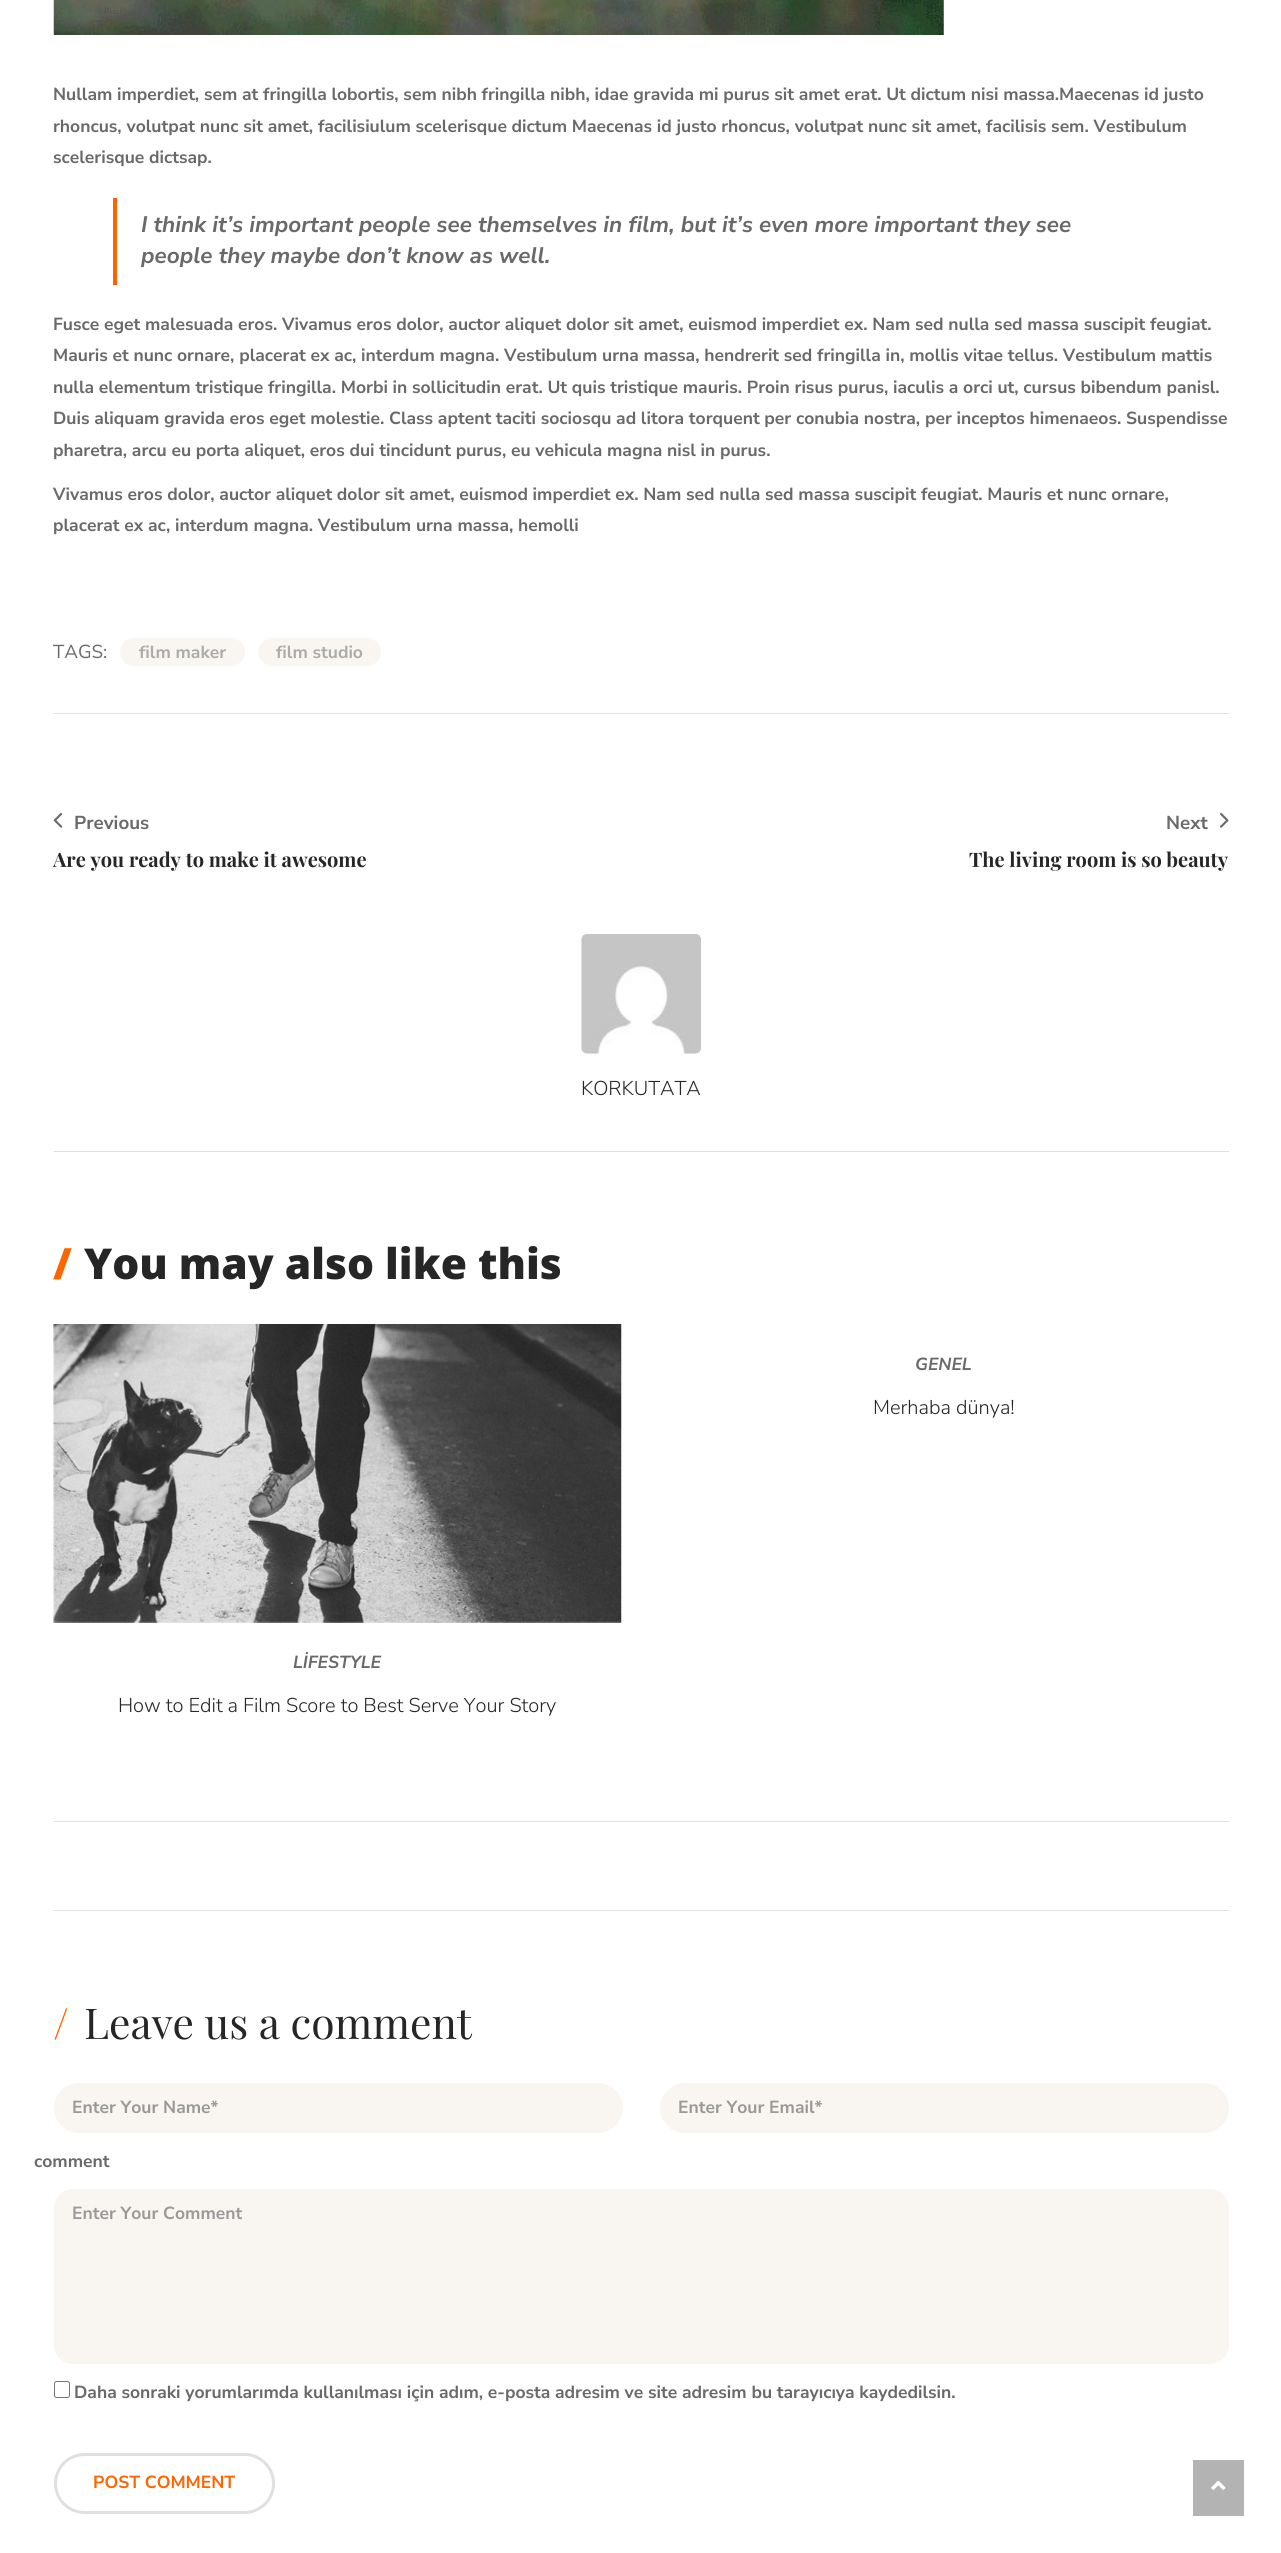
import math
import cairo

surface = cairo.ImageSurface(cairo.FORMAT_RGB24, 1281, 2553)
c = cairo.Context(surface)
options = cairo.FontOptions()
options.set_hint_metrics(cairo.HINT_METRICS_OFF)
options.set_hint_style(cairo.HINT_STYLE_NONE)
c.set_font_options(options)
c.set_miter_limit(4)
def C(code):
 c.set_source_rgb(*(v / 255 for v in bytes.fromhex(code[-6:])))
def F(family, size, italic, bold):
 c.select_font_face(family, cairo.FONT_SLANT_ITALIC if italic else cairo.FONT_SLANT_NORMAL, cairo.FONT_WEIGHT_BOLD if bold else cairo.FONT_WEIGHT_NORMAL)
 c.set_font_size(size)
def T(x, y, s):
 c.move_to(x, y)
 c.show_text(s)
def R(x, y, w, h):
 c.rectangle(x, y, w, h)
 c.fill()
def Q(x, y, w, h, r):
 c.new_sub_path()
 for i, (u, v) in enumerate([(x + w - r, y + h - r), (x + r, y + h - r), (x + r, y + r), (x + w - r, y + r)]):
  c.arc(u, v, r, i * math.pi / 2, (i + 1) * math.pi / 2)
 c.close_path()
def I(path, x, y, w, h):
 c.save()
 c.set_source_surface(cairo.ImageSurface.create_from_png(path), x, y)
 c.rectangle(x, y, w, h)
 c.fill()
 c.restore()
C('ffffff')
c.paint()
I('1.png',53,0,891,35)
C('e0e0e0')
R(54,713,1175,1)
F('Nunito Sans',17.5,0,1)
C('696969')
T(53,100,'Nullam imperdiet, sem at fringilla lobortis, sem nibh fringilla nibh, idae gravida mi purus sit amet erat. Ut dictum nisi massa.Maecenas id justo')
T(53,132,'rhoncus, volutpat nunc sit amet, facilisiulum scelerisque dictum Maecenas id justo rhoncus, volutpat nunc sit amet, facilisis sem. Vestibulum')
T(53,163,'scelerisque dictsap.')
C('fd6500')
R(113,198,4,87)
F('Nunito Sans',22.5,1,1)
C('696969')
T(141,232,'I think it’s important people see themselves in film, but it’s even more important they see')
T(141,263,'people they maybe don’t know as well.')
F('Nunito Sans',17.5,0,1)
T(53,330,'Fusce eget malesuada eros. Vivamus eros dolor, auctor aliquet dolor sit amet, euismod imperdiet ex. Nam sed nulla sed massa suscipit feugiat.')
T(53,361,'Mauris et nunc ornare, placerat ex ac, interdum magna. Vestibulum urna massa, hendrerit sed fringilla in, mollis vitae tellus. Vestibulum mattis')
T(53,393,'nulla elementum tristique fringilla. Morbi in sollicitudin erat. Ut quis tristique mauris. Proin risus purus, iaculis a orci ut, cursus bibendum panisl.')
T(53,424,'Duis aliquam gravida eros eget molestie. Class aptent taciti sociosqu ad litora torquent per conubia nostra, per inceptos himenaeos. Suspendisse')
T(53,456,'pharetra, arcu eu porta aliquet, eros dui tincidunt purus, eu vehicula magna nisl in purus.')
T(53,500,'Vivamus eros dolor, auctor aliquet dolor sit amet, euismod imperdiet ex. Nam sed nulla sed massa suscipit feugiat. Mauris et nunc ornare,')
T(53,531,'placerat ex ac, interdum magna. Vestibulum urna massa, hemolli')
F('Nunito Sans',18.75,0,0)
T(53,658,'TAGS:')
C('f9f6f1')
Q(120,638,125,28,14)
c.fill()
F('Nunito Sans',17.5,0,1)
C('ababab')
T(139,658,'film maker')
C('f9f6f1')
Q(258,638,123,28,14)
c.fill()
C('ababab')
T(276,658,'film studio')
I('2.png',53,813,10,15)
F('Nunito Sans',18.75,0,1)
C('696969')
T(74,829,'Previous')
F('Playfair Display',20,0,1)
C('262626')
T(53,867,'Are you ready to make it awesome')
F('Nunito Sans',18.75,0,1)
C('696969')
T(1166,829,'Next')
I('3.png',1220,813,9,15)
F('Playfair Display',20,0,1)
C('262626')
T(969,867,'The living room is so beauty')
C('e0e0e0')
R(54,1151,1175,1)
I('4.png',581,934,120,120)
F('Nunito Sans Light',20,0,0)
C('262626')
T(581,1095,'KORKUTATA')
C('e0e0e0')
R(54,1821,1175,1)
F('Open Sans ExtraBold',42.5,0,0)
C('fd6500')
T(53,1279,'/')
C('262626')
T(84,1279,'You may also like this')
F('Nunito Sans',17.5,1,1)
C('696969')
T(915,1370,'GENEL')
F('Nunito Sans Light',20,0,0)
C('262626')
T(873,1414,'Merhaba dünya!')
I('5.png',53,1324,569,299)
F('Nunito Sans',17.5,1,1)
C('696969')
T(293,1668,'LİFESTYLE')
F('Nunito Sans Light',20,0,0)
C('262626')
T(118,1712,'How to Edit a Film Score to Best Serve Your Story')
C('e0e0e0')
R(54,1910,1175,1)
F('Playfair Display',42.5,0,0)
C('fd6500')
T(53,2039,'/')
C('262626')
T(84,2039,'Leave us a comment')
C('f9f6f1')
Q(54,2083,569,50,25)
c.fill()
F('Nunito Sans',17.5,0,1)
C('999999')
T(72,2113,'Enter Your Name*')
C('f9f6f1')
Q(660,2083,569,50,25)
c.fill()
C('999999')
T(678,2113,'Enter Your Email*')
C('696969')
T(34,2167,'comment')
C('f9f6f1')
Q(54,2189,1175,175,19)
c.fill()
C('999999')
T(72,2219,'Enter Your Comment')
Q(54.5,2381.5,15,16,2)
C('767676')
c.set_line_width(1)
c.stroke()
C('696969')
T(74,2398,'Daha sonraki yorumlarımda kullanılması için adım, e-posta adresim ve site adresim bu tarayıcıya kaydedilsin.')
Q(55.5,2454.5,218,58,29)
C('e0e0e0')
c.set_line_width(3)
c.stroke()
C('fd6500')
T(93,2488,'POST COMMENT')
C('b3b3b3')
R(1193,2460,51,56)
I('6.png',1211,2480,15,10)
surface.write_to_png('o.png')
